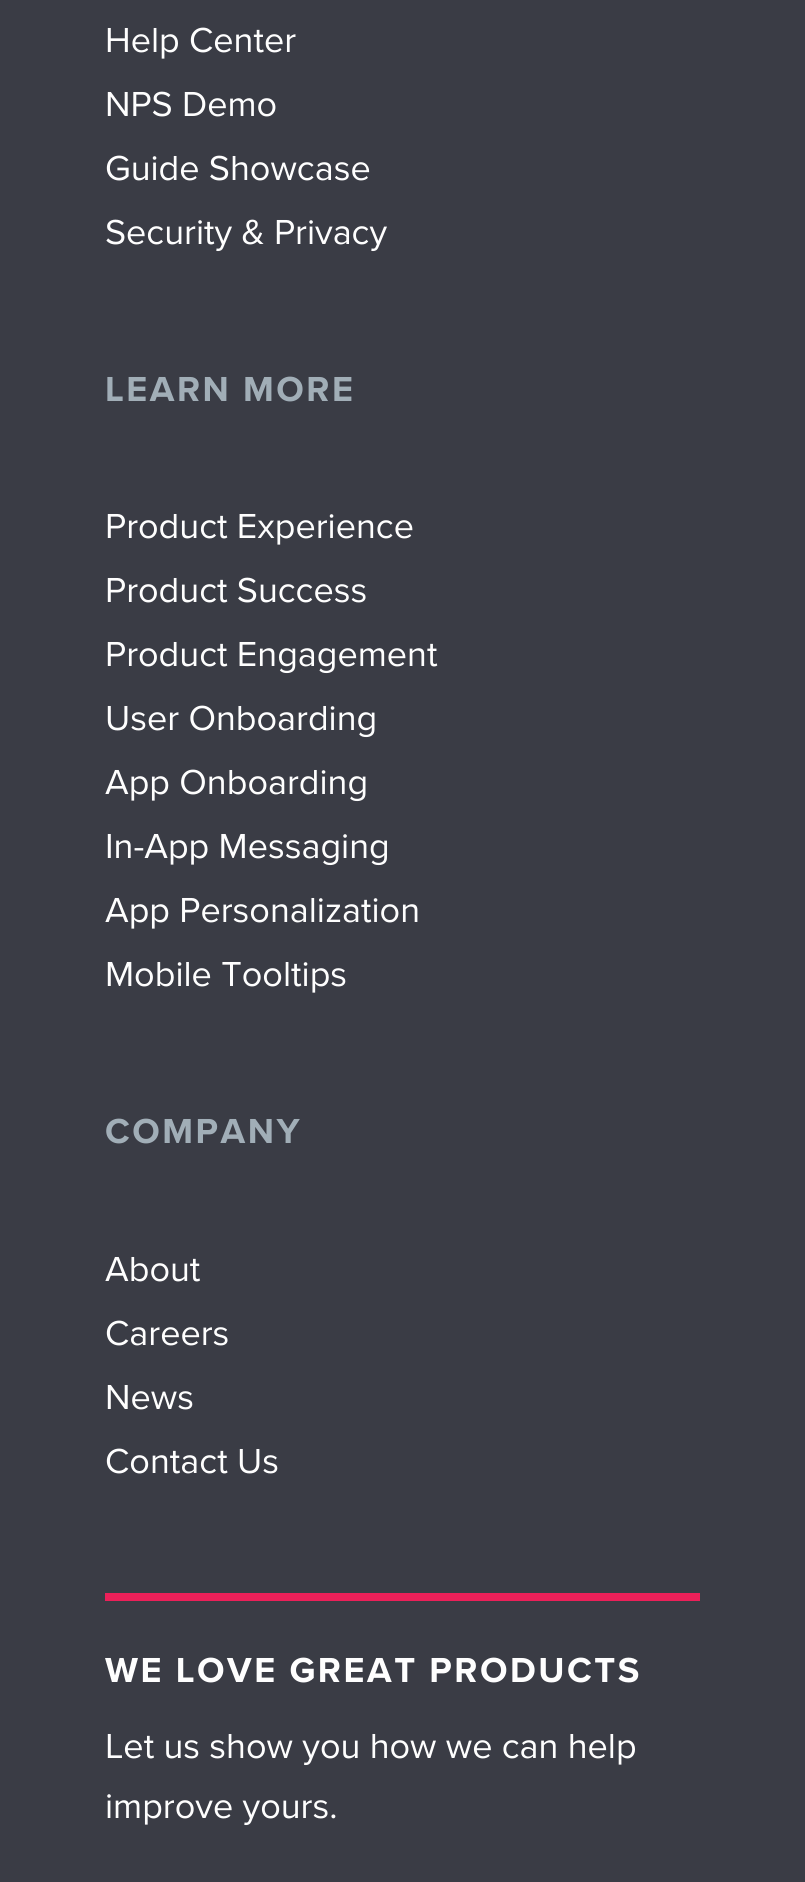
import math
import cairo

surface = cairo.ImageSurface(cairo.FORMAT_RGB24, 805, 1882)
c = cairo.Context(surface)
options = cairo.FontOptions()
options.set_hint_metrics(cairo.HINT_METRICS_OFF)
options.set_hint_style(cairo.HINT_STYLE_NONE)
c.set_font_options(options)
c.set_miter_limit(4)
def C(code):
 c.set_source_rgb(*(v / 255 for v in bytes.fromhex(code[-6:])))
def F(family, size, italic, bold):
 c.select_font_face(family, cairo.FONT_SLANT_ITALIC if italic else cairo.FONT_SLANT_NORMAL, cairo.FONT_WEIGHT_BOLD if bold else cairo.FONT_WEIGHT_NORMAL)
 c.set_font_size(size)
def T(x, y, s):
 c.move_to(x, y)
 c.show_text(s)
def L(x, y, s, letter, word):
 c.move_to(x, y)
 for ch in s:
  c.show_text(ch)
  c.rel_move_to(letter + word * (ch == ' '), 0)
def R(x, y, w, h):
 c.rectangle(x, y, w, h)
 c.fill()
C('3a3c45')
c.paint()
F('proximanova',36,0,0)
C('fefefe')
T(105,52,'Help Center')
T(105,116,'NPS Demo')
T(105,180,'Guide Showcase')
T(105,244,'Security & Privacy')
F('proximanova',36,0,1)
C('a1aeb7')
L(105,401,'LEARN MORE',2.5,0)
F('proximanova',36,0,0)
C('fefefe')
T(105,538,'Product Experience')
T(105,602,'Product Success')
T(105,666,'Product Engagement')
T(105,730,'User Onboarding')
T(105,794,'App Onboarding')
T(105,858,'In-App Messaging')
T(105,922,'App Personalization')
T(105,986,'Mobile Tooltips')
F('proximanova',36,0,1)
C('a1aeb7')
L(105,1143,'COMPANY',2.5,0)
F('proximanova',36,0,0)
C('fefefe')
T(105,1281,'About')
T(105,1345,'Careers')
T(105,1409,'News')
T(105,1473,'Contact Us')
C('ec2059')
R(105,1593,595,8)
F('proximanova',36,0,1)
C('fefefe')
L(105,1682,'WE LOVE GREAT PRODUCTS',2.5,0)
F('proximanova',36,0,0)
T(105,1758,'Let us show you how we can help')
T(105,1818,'improve yours.')
surface.write_to_png('o.png')
